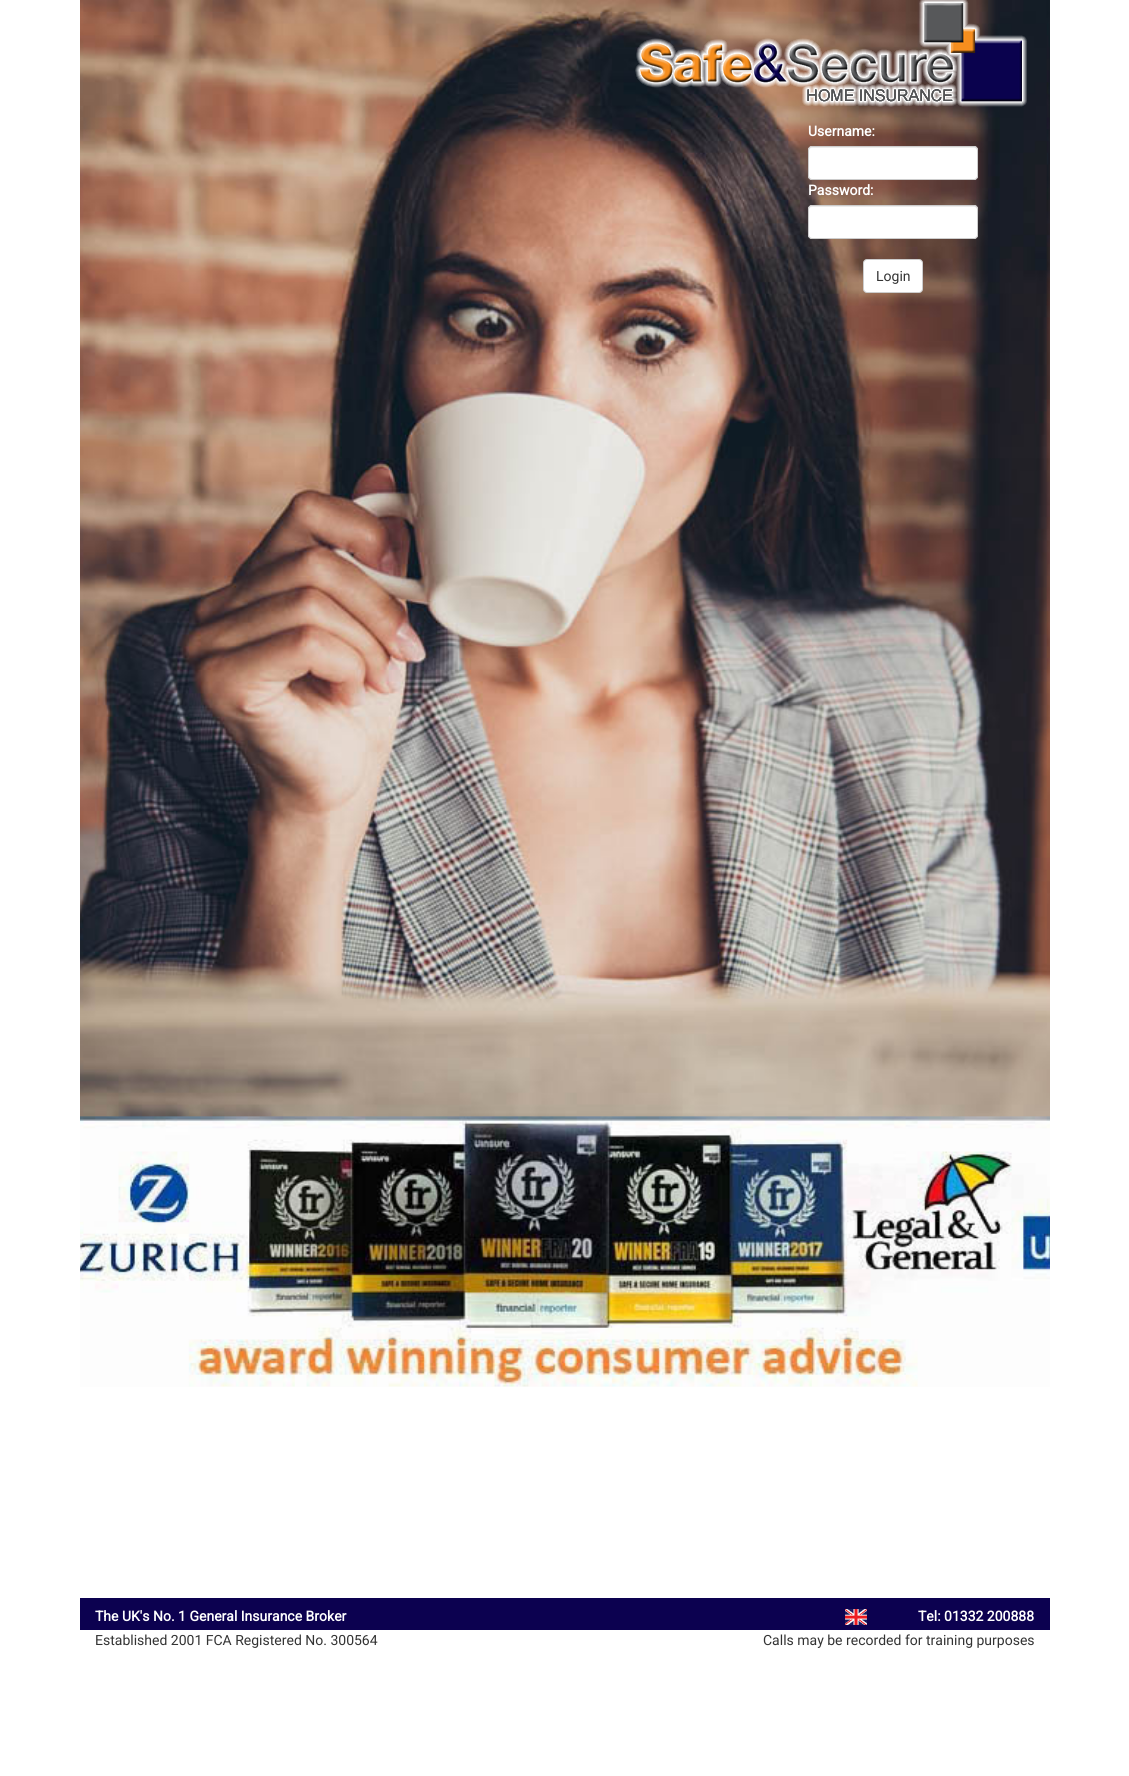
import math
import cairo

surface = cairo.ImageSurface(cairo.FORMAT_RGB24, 1129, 1776)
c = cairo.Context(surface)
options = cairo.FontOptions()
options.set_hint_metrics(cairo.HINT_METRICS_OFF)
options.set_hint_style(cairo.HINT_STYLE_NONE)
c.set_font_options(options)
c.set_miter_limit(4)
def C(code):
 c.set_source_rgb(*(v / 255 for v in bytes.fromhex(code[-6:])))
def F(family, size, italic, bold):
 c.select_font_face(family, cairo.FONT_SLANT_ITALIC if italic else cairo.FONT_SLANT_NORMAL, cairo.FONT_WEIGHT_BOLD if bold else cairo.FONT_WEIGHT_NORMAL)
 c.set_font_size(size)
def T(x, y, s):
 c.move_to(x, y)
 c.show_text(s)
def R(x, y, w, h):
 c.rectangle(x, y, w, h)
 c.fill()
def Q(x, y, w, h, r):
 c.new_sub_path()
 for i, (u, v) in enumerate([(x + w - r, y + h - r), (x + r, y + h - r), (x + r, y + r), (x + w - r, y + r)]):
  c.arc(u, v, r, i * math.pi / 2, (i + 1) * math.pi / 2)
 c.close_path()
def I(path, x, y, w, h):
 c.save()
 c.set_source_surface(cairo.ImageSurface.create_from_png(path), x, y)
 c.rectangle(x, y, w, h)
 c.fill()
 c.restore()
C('ffffff')
c.paint()
I('1.png',80,0,970,1387)
I('2.png',635,0,392,107)
F('Roboto',14,0,1)
C('ffffff')
T(808,136,'Username:')
Q(808,146,170,34,4)
c.fill()
C('ececec')
c.new_path()
c.move_to(812,148)
c.line_to(974,148)
c.curve_to(976,148,977,149,977,151)
c.line_to(977,150)
c.curve_to(977,148,976,147,974,147)
c.line_to(812,147)
c.curve_to(810,147,809,148,809,150)
c.line_to(809,151)
c.curve_to(809,149,810,148,812,148)
c.close_path()
c.fill()
Q(808.5,146.5,169,33,3.5)
C('cccccc')
c.set_line_width(1)
c.stroke()
C('ffffff')
T(808,195,'Password:')
Q(808,205,170,34,4)
c.fill()
C('ececec')
c.new_path()
c.move_to(812,207)
c.line_to(974,207)
c.curve_to(976,207,977,208,977,210)
c.line_to(977,209)
c.curve_to(977,207,976,206,974,206)
c.line_to(812,206)
c.curve_to(810,206,809,207,809,209)
c.line_to(809,210)
c.curve_to(809,208,810,207,812,207)
c.close_path()
c.fill()
Q(808.5,205.5,169,33,3.5)
C('cccccc')
c.stroke()
C('ffffff')
Q(863.5,259.5,59,33,3.5)
c.fill_preserve()
C('cccccc')
c.stroke()
F('Roboto',14,0,0)
C('333333')
T(876,281,'Login')
C('0c0150')
R(80,1598,970,32)
F('Roboto',14,0,1)
C('ffffff')
T(95,1621,'The UK\'s No. 1 General Insurance Broker')
I('3.png',845,1609,22,16)
T(918,1621,'Tel: 01332 200888')
F('Roboto',14,0,0)
C('333333')
T(95,1645,'Established 2001 FCA Registered No. 300564')
T(763,1645,'Calls may be recorded for training purposes')
surface.write_to_png('o.png')
